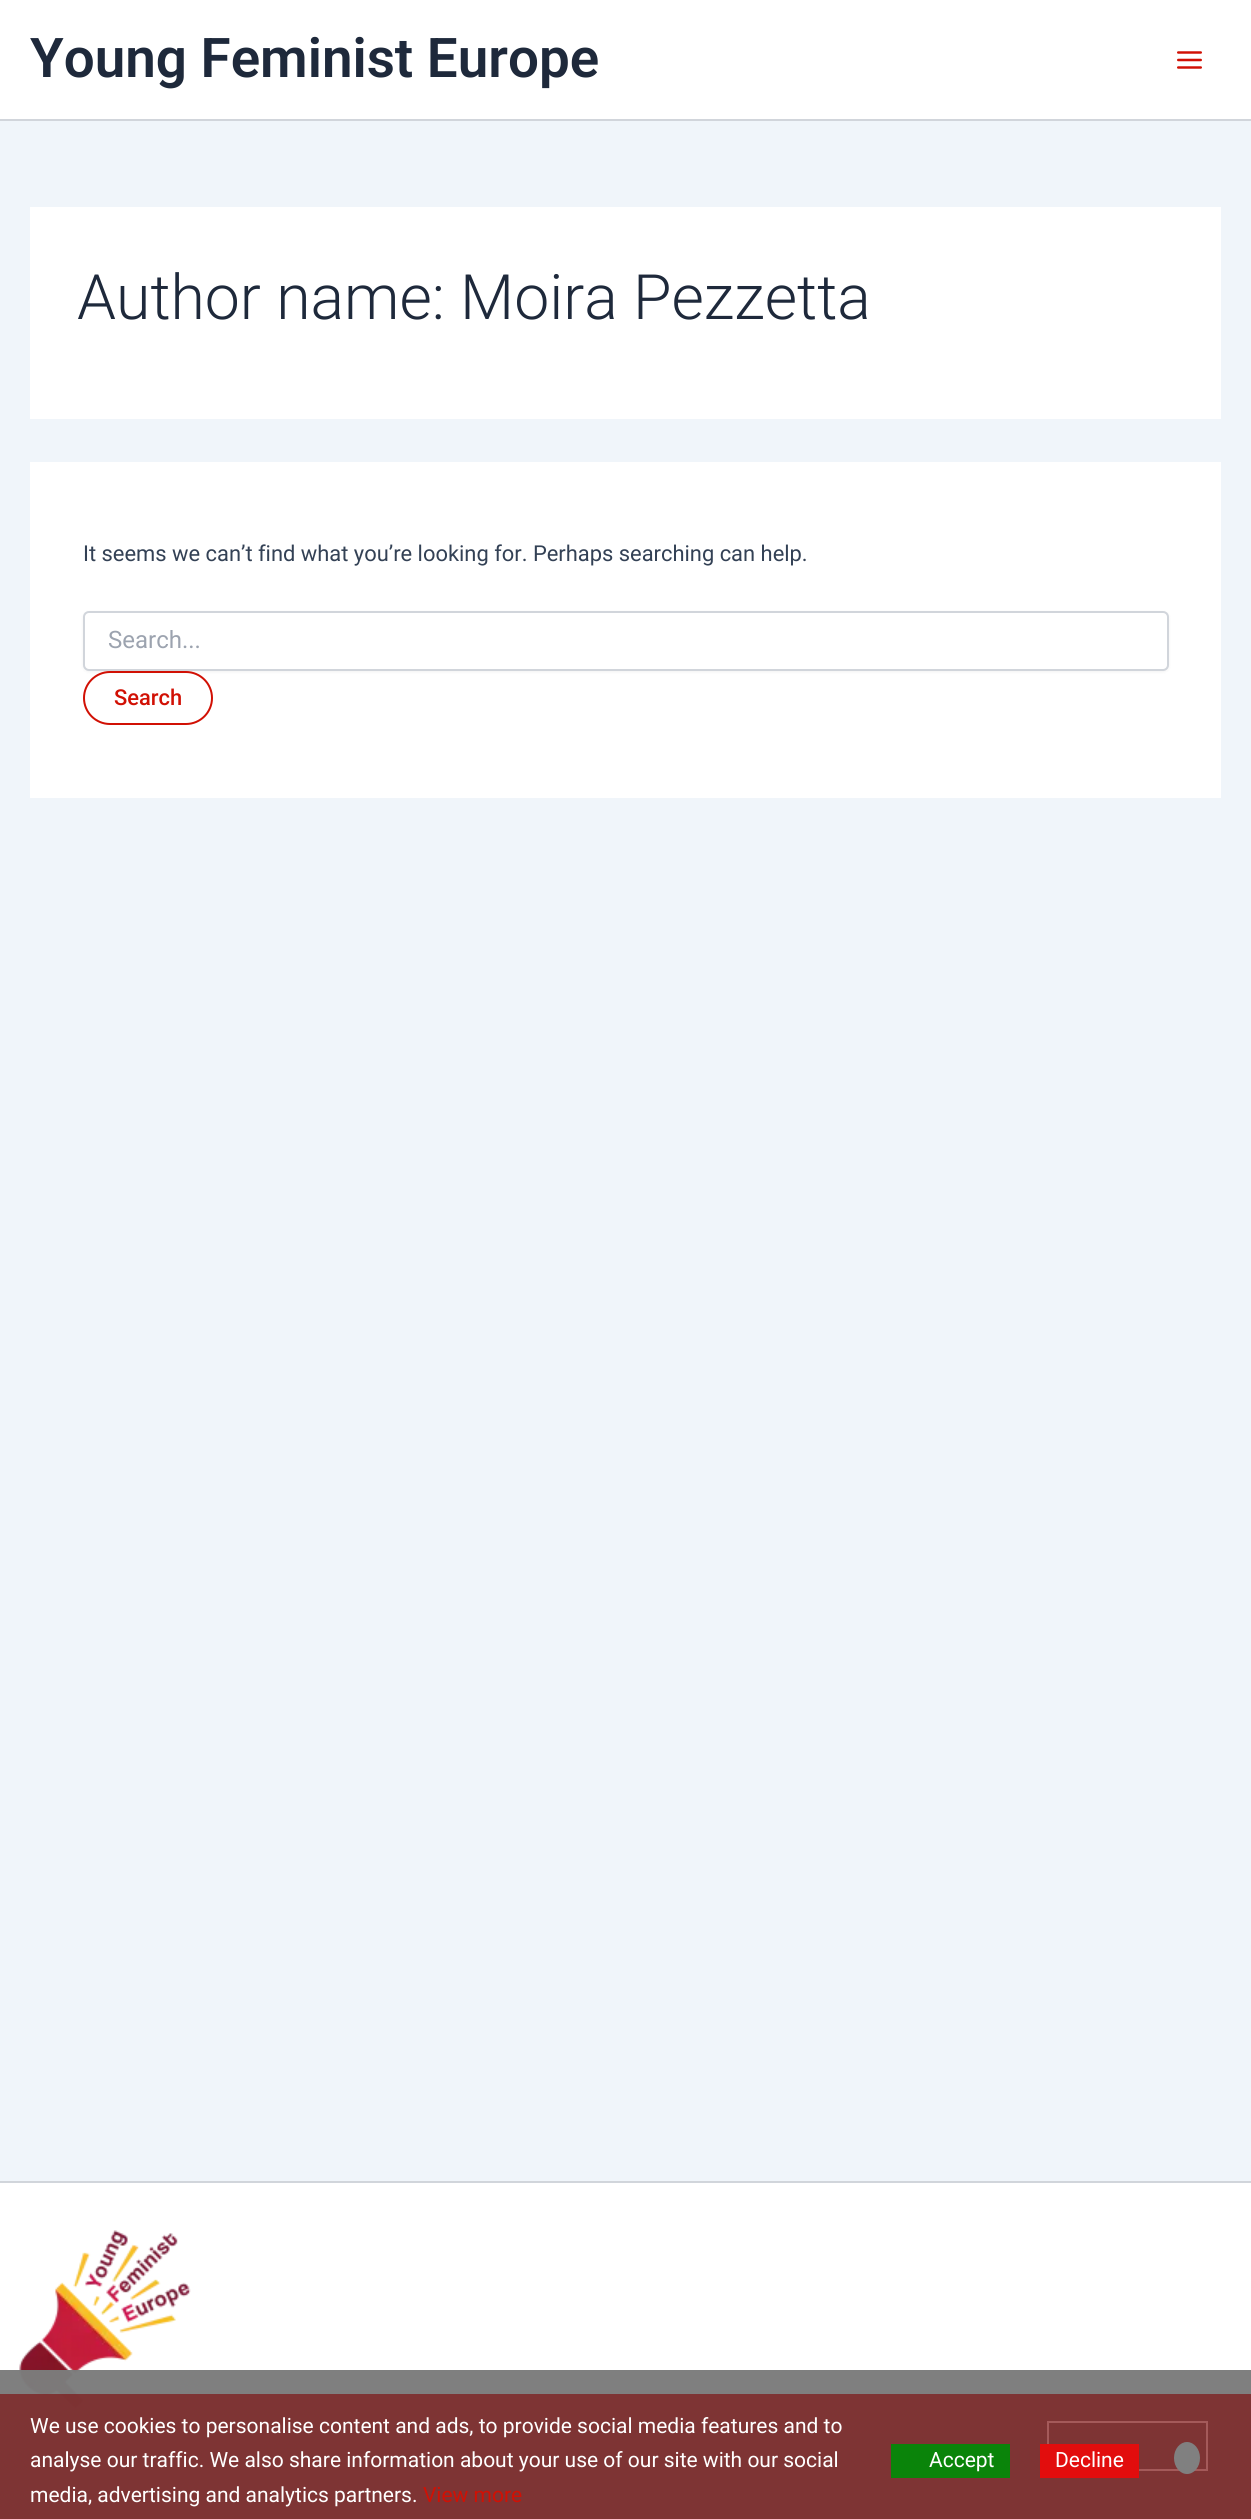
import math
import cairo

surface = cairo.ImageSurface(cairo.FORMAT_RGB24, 1251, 2519)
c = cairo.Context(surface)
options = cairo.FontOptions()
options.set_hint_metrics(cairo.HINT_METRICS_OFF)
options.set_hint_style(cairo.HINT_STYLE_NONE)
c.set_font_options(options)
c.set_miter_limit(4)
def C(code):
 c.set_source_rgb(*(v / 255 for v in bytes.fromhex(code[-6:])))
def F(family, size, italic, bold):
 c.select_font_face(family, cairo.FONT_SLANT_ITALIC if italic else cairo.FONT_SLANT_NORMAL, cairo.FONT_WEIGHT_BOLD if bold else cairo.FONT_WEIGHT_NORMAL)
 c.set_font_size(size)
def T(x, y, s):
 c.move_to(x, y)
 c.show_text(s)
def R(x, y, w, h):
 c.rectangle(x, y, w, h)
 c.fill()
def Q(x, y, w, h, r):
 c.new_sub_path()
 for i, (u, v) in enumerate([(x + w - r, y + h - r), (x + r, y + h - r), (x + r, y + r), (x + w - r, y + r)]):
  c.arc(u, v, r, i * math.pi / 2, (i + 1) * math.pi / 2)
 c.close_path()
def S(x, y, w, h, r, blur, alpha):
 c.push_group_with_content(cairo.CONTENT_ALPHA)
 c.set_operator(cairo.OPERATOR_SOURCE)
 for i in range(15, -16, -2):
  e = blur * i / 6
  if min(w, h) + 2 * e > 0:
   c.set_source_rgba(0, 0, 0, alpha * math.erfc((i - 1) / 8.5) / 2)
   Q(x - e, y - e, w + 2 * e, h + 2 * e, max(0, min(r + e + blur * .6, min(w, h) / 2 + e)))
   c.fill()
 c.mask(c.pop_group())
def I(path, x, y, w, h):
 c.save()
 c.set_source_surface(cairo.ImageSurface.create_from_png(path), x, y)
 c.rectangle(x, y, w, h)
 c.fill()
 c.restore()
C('f0f5fa')
c.paint()
C('ffffff')
R(0,0,1251,119)
C('d1d5db')
R(0,119,1251,2)
F('Roboto SemiBold',54.75,0,0)
C('1e293b')
T(30,77,'Young Feminist Europe')
I('1.png',1177,51,25,18)
C('ffffff')
R(30,207,1191,212)
F('Roboto Light',62.5,0,0)
C('1e293b')
T(77,319,'Author name: Moira Pezzetta')
C('ffffff')
R(30,462,1191,336)
F('Roboto',21.9,0,0)
C('334155')
T(83,561,'It seems we can’t find what you’re looking for. Perhaps searching can help.')
C('000000')
S(83,612,1086,60,6,1.5,.05)
C('ffffff')
Q(84,612,1084,58,5)
c.fill_preserve()
C('d1d5db')
c.stroke()
F('Roboto',24,0,0)
C('9ca3af')
T(108,648,'Search...')
Q(84,672,128,52,26)
C('d11004')
c.stroke()
F('Roboto Medium',21.9,0,0)
T(114,705,'Search')
C('ffffff')
R(0,2183,1251,336)
C('d1d5db')
R(0,2181,1251,2)
I('2.png',19,2230,172,179)
c.set_source_rgba(0.486,0.486,0.486,0.97)
R(0,2370,1251,149)
c.rectangle(1048,2422,159,48)
C('ffffff')
c.stroke()
c.set_source_rgba(0.494,0.082,0.082,0.7)
R(0,2394,1251,125)
F('Roboto',21,0,0)
C('ffffff')
T(30,2433,'We use cookies to personalise content and ads, to provide social media features and to')
T(30,2467,'analyse our traffic. We also share information about your use of our site with our social')
T(30,2502,'media, advertising and analytics partners.')
C('d11004')
T(423,2502,'View more')
C('0a840a')
R(891,2444,119,34)
C('ffffff')
T(929,2467,'Accept')
C('e20d0d')
R(1040,2444,99,34)
C('ffffff')
T(1055,2467,'Decline')
C('808080')
c.new_path()
c.move_to(1187,2442)
c.curve_to(1194,2442,1200,2449,1200,2458)
c.curve_to(1200,2467,1194,2474,1187,2474)
c.curve_to(1180,2474,1174,2467,1174,2458)
c.curve_to(1174,2449,1180,2442,1187,2442)
c.close_path()
c.fill()
surface.write_to_png('o.png')
